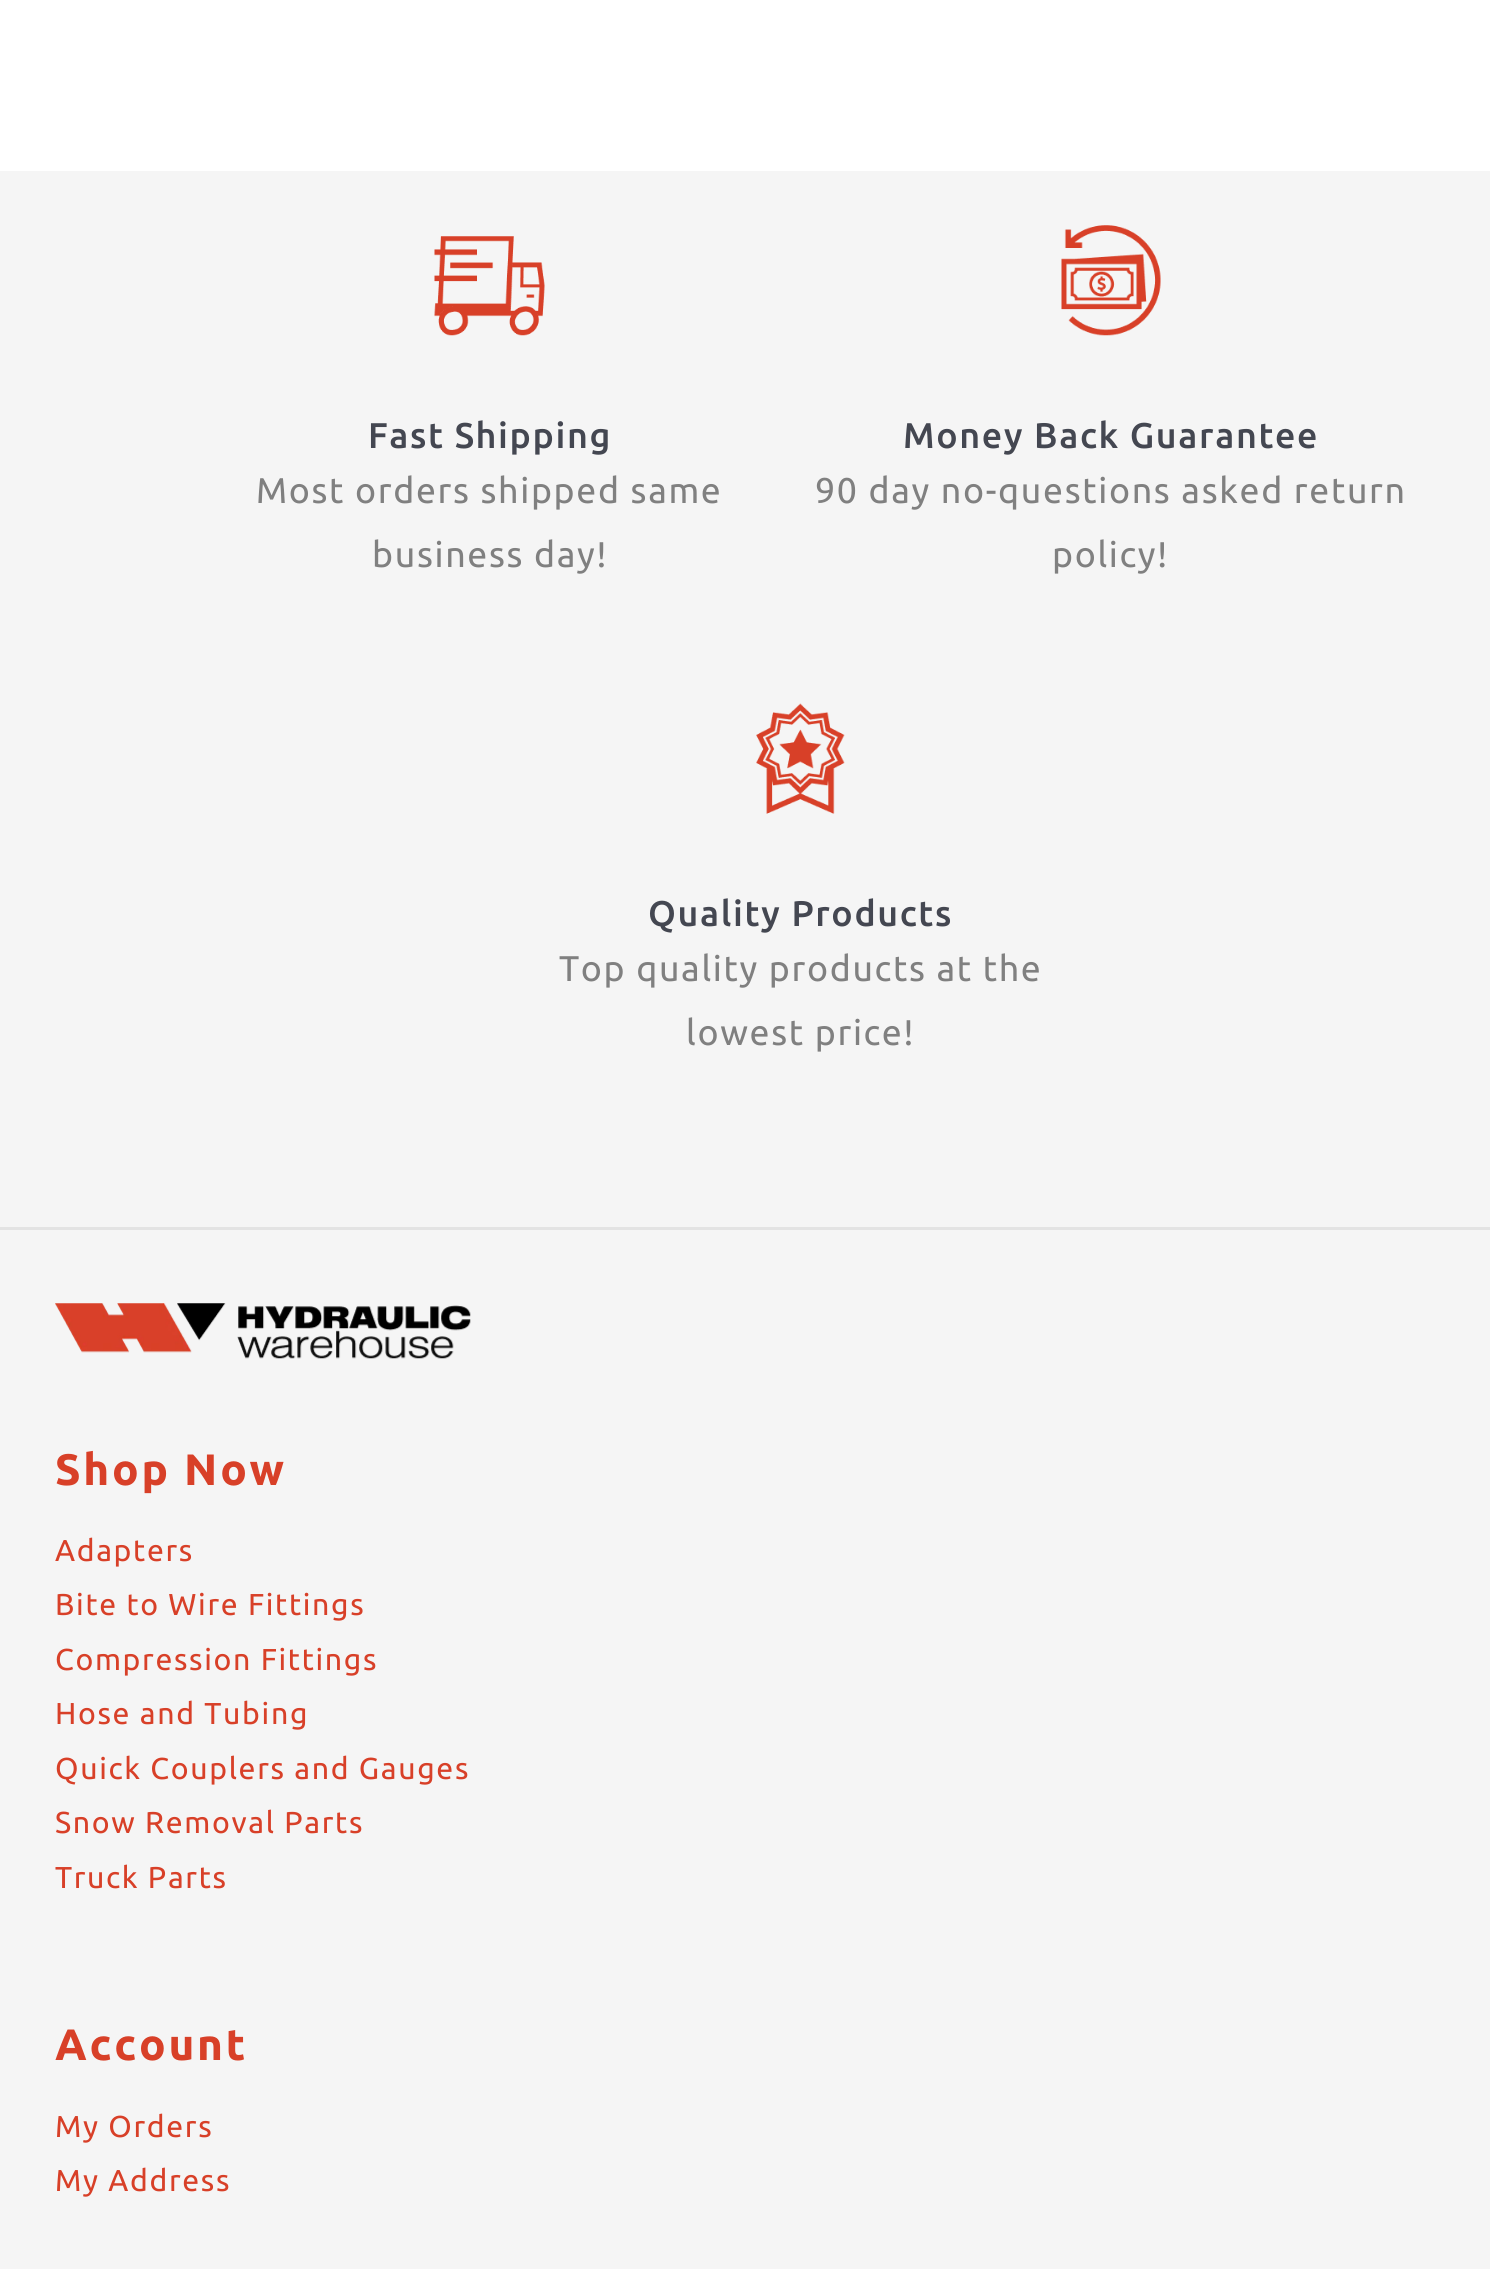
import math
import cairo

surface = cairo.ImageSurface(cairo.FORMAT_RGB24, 1490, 2269)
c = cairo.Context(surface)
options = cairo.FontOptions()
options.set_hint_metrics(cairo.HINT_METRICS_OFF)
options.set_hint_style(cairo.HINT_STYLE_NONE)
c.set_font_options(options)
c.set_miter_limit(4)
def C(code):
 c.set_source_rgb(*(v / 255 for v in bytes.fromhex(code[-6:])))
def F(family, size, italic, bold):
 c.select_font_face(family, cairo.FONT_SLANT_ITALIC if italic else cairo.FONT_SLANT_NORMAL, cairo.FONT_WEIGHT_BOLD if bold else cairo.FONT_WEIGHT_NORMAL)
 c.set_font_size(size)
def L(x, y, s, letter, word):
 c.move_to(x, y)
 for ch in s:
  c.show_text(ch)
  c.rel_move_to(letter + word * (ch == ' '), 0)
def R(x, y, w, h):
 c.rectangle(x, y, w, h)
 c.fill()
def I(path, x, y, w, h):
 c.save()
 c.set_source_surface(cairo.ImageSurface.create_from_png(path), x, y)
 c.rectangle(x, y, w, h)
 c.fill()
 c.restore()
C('ffffff')
c.paint()
C('f5f5f5')
R(0,171,1490,1056)
I('1.png',434,236,111,100)
F('Ubuntu Medium',35.75,0,0)
C('444751')
L(368,448,'Fast Shipping',1.65,0)
F('Ubuntu',35.75,0,0)
C('808080')
L(256,503,'Most orders shipped same',1.65,0)
L(372,567,'business day!',1.65,0)
I('2.png',1061,225,100,111)
F('Ubuntu Medium',35.75,0,0)
C('444751')
L(903,448,'Money Back Guarantee',1.65,0)
F('Ubuntu',35.75,0,0)
C('808080')
L(815,503,'90 day no-questions asked return',1.65,0)
L(1052,567,'policy!',1.65,0)
I('3.png',756,703,89,111)
F('Ubuntu Medium',35.75,0,0)
C('444751')
L(648,926,'Quality Products',1.65,0)
F('Ubuntu',35.75,0,0)
C('808080')
L(559,981,'Top quality products at the',1.65,0)
L(686,1045,'lowest price!',1.65,0)
C('f5f5f5')
R(0,1230,1490,1039)
C('e3e3e3')
R(0,1227,1490,3)
I('4.png',55,1303,416,56)
F('Ubuntu',44,0,1)
C('d84028')
L(55,1485,'Shop Now',2.75,0)
F('Ubuntu',30.25,0,0)
L(55,1561,'Adapters',1.65,0)
L(55,1615,'Bite to Wire Fittings',1.65,0)
L(55,1670,'Compression Fittings',1.65,0)
L(55,1724,'Hose and Tubing',1.65,0)
L(55,1779,'Quick Couplers and Gauges',1.65,0)
L(55,1833,'Snow Removal Parts',1.65,0)
L(55,1888,'Truck Parts',1.65,0)
F('Ubuntu',44,0,1)
L(55,2060,'Account',2.75,0)
F('Ubuntu',30.25,0,0)
L(55,2137,'My Orders',1.65,0)
L(55,2191,'My Address',1.65,0)
surface.write_to_png('o.png')
